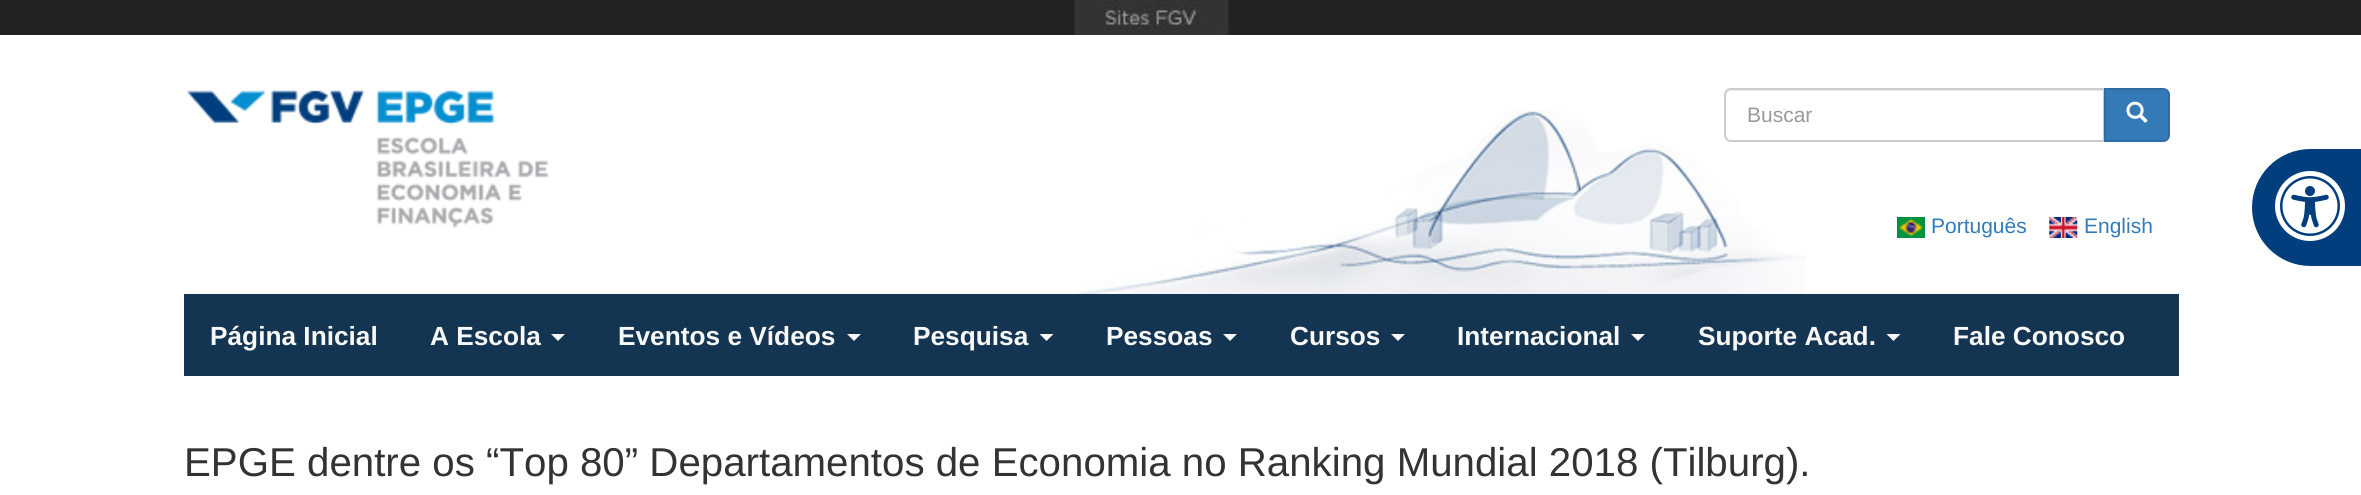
import math
import cairo

surface = cairo.ImageSurface(cairo.FORMAT_RGB24, 2361, 495)
c = cairo.Context(surface)
options = cairo.FontOptions()
options.set_hint_metrics(cairo.HINT_METRICS_OFF)
options.set_hint_style(cairo.HINT_STYLE_NONE)
c.set_font_options(options)
c.set_miter_limit(4)
def C(code):
 c.set_source_rgb(*(v / 255 for v in bytes.fromhex(code[-6:])))
def F(family, size, italic, bold):
 c.select_font_face(family, cairo.FONT_SLANT_ITALIC if italic else cairo.FONT_SLANT_NORMAL, cairo.FONT_WEIGHT_BOLD if bold else cairo.FONT_WEIGHT_NORMAL)
 c.set_font_size(size)
def T(x, y, s):
 c.move_to(x, y)
 c.show_text(s)
def R(x, y, w, h):
 c.rectangle(x, y, w, h)
 c.fill()
def I(path, x, y, w, h):
 c.save()
 c.set_source_surface(cairo.ImageSurface.create_from_png(path), x, y)
 c.rectangle(x, y, w, h)
 c.fill()
 c.restore()
C('ffffff')
c.paint()
C('222222')
R(0,0,2361,35)
I('1.png',1074,0,155,35)
I('2.png',1076,110,729,184)
I('3.png',187,90,362,138)
C('ececec')
c.new_path()
c.move_to(1731,91)
c.line_to(2104,91)
c.line_to(2104,89)
c.line_to(1731,89)
c.curve_to(1728,89,1726,91,1726,94)
c.line_to(1726,96)
c.curve_to(1726,93,1728,91,1731,91)
c.close_path()
c.fill()
c.new_path()
c.move_to(1731,89)
c.line_to(2104,89)
c.line_to(2104,141)
c.line_to(1731,141)
c.curve_to(1727.5,141,1725,138.5,1725,135)
c.line_to(1725,95)
c.curve_to(1725,91.5,1727.5,89,1731,89)
c.close_path()
C('cccccc')
c.stroke()
F('Liberation Sans',21,0,0)
C('999999')
T(1747,122,'Buscar')
C('337ab7')
c.new_path()
c.move_to(2105,89)
c.line_to(2163,89)
c.curve_to(2166.5,89,2169,91.5,2169,95)
c.line_to(2169,135)
c.curve_to(2169,138.5,2166.5,141,2163,141)
c.line_to(2105,141)
c.close_path()
c.fill_preserve()
C('2e6da4')
c.stroke()
I('4.png',2126,101,22,22)
I('5.png',1897,217,28,21)
C('337ab7')
T(1931,233,'Português')
I('6.png',2049,217,29,21)
T(2084,233,'English')
C('133551')
R(184,294,1995,82)
F('Liberation Sans',26.25,0,1)
C('f8f8f8')
T(210,345,'Página Inicial')
T(430,345,'A Escola')
c.new_path()
c.move_to(551,334)
c.line_to(565,334)
c.line_to(558,341)
c.close_path()
c.fill()
T(618,345,'Eventos e Vídeos')
c.new_path()
c.move_to(847,334)
c.line_to(861,334)
c.line_to(854,341)
c.close_path()
c.fill()
T(913,345,'Pesquisa')
c.new_path()
c.move_to(1039.5,334)
c.line_to(1053.5,334)
c.line_to(1046.5,341)
c.close_path()
c.fill()
T(1106,345,'Pessoas')
c.new_path()
c.move_to(1223,334)
c.line_to(1237,334)
c.line_to(1230,341)
c.close_path()
c.fill()
T(1290,345,'Cursos')
c.new_path()
c.move_to(1391,334)
c.line_to(1405,334)
c.line_to(1398,341)
c.close_path()
c.fill()
T(1457,345,'Internacional')
c.new_path()
c.move_to(1631,334)
c.line_to(1645,334)
c.line_to(1638,341)
c.close_path()
c.fill()
T(1698,345,'Suporte Acad.')
c.new_path()
c.move_to(1886.5,334)
c.line_to(1900.5,334)
c.line_to(1893.5,341)
c.close_path()
c.fill()
T(1953,345,'Fale Conosco')
C('003e7e')
c.new_path()
c.move_to(2310.5,151.5)
c.line_to(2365.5,151.5)
c.line_to(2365.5,263.5)
c.line_to(2310.5,263.5)
c.curve_to(2279.5,263.5,2254.5,238.5,2254.5,207.5)
c.curve_to(2254.5,176.5,2279.5,151.5,2310.5,151.5)
c.close_path()
c.fill_preserve()
c.set_line_width(5)
c.stroke()
I('7.png',2275,171,70,70)
F('Liberation Sans',40.25,0,0)
C('333333')
T(184,476,'EPGE dentre os “Top 80” Departamentos de Economia no Ranking Mundial 2018 (Tilburg).')
surface.write_to_png('o.png')
